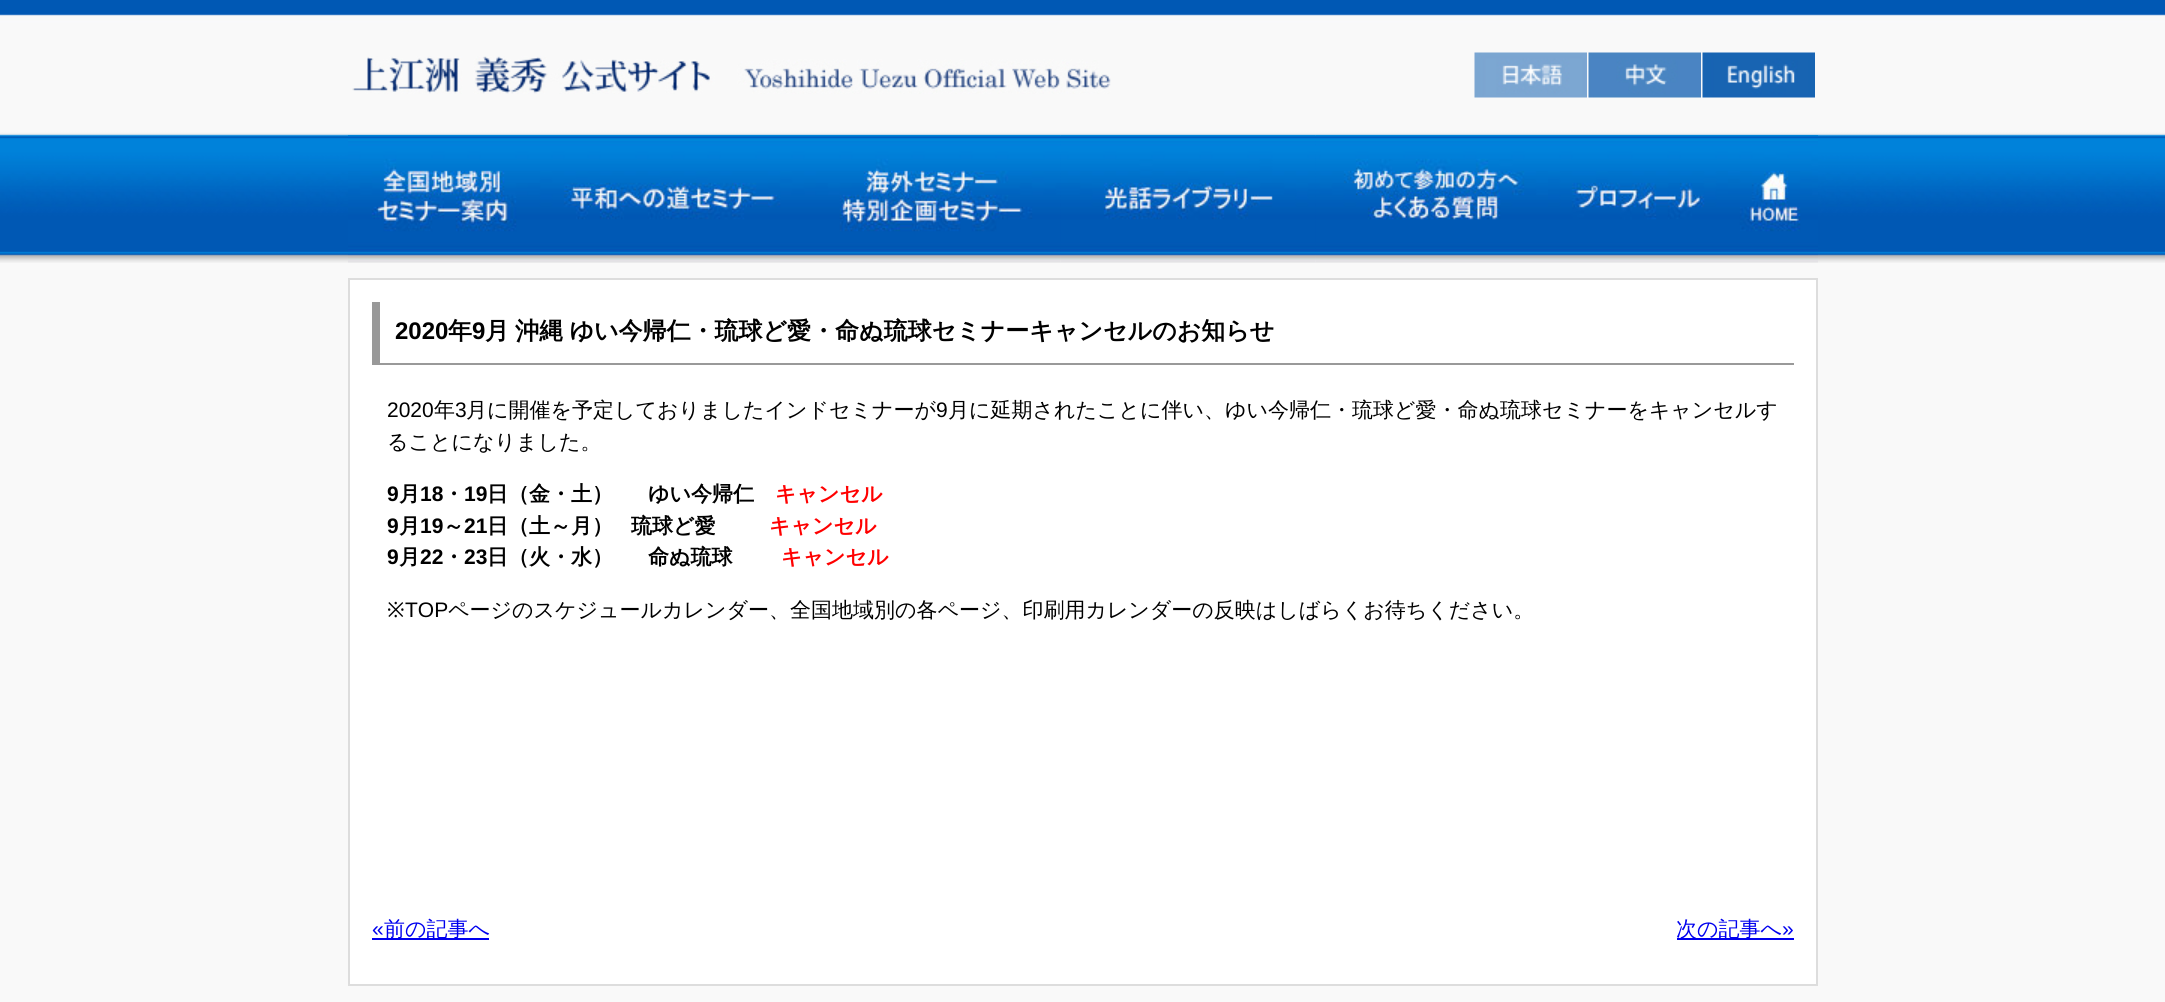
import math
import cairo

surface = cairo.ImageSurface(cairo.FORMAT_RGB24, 2165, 1002)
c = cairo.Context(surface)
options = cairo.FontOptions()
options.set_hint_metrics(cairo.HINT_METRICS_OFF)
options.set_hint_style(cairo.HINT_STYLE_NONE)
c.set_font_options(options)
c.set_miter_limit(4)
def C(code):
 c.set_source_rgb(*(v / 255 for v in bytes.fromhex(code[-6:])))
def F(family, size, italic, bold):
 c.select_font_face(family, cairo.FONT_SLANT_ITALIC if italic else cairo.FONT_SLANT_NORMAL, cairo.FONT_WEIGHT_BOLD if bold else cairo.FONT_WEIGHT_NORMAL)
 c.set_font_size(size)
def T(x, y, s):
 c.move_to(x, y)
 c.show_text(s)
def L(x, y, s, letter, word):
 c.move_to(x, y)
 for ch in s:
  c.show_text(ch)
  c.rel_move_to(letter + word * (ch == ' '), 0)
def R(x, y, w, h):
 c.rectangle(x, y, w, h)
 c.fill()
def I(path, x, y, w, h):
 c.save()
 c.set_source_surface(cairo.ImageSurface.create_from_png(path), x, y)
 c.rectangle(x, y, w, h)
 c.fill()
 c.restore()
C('f9f9f9')
c.paint()
I('1.png',0,0,2165,263)
I('2.png',352,56,759,38)
I('3.png',1474,52,113,46)
I('4.png',1588,52,113,46)
I('5.png',1702,52,113,46)
I('6.png',348,135,195,128)
I('7.png',543,135,255,128)
I('8.png',798,135,263,128)
I('9.png',1060,135,256,128)
I('10.png',1315,135,233,128)
I('11.png',1548,135,180,128)
I('12.png',1728,135,90,128)
C('ffffff')
c.rectangle(349,279,1468,706)
c.fill_preserve()
C('dddddd')
c.stroke()
C('999999')
R(372,363,1422,2)
R(372,302,8,63)
F('Liberation Sans',24,0,1)
C('000000')
T(395,339,'2020')
F('WenQuanYi Zen Hei',24,0,1)
T(448,339,'年')
F('Liberation Sans',24,0,1)
T(472,339,'9')
F('WenQuanYi Zen Hei',24,0,1)
L(485,339,'月 沖縄 ゆい今帰仁・琉球ど愛・命ぬ琉球セミナーキャンセルのお知らせ',0,-1)
F('Liberation Sans',21,0,0)
T(387,417,'2020')
F('WenQuanYi Zen Hei Medium',21,0,0)
T(434,417,'年')
F('Liberation Sans',21,0,0)
T(455,417,'3')
F('WenQuanYi Zen Hei Medium',21,0,0)
T(466,417,'月に開催を予定しておりましたインドセミナーが')
F('Liberation Sans',21,0,0)
T(936,417,'9')
F('WenQuanYi Zen Hei Medium',21,0,0)
T(948,417,'月に延期されたことに伴い、ゆい今帰仁・琉球ど愛・命ぬ琉球セミナーをキャンセルす')
T(387,449,'ることになりました。')
F('Liberation Sans',21,0,1)
T(387,501,'9')
F('WenQuanYi Zen Hei',21,0,1)
T(399,501,'月')
F('Liberation Sans',21,0,1)
T(420,501,'18')
F('WenQuanYi Zen Hei',21,0,1)
T(443,501,'・')
F('Liberation Sans',21,0,1)
T(464,501,'19')
F('WenQuanYi Zen Hei',21,0,1)
T(487,501,'日（金・土）')
T(648,501,'ゆい今帰仁')
C('ff0000')
T(775,501,'キャンセル')
F('Liberation Sans',21,0,1)
C('000000')
T(387,533,'9')
F('WenQuanYi Zen Hei',21,0,1)
T(399,533,'月')
F('Liberation Sans',21,0,1)
T(420,533,'19')
F('WenQuanYi Zen Hei',21,0,1)
T(443,533,'～')
F('Liberation Sans',21,0,1)
T(464,533,'21')
F('WenQuanYi Zen Hei',21,0,1)
T(487,533,'日（土～月）')
T(631,533,'琉球ど愛')
C('ff0000')
T(769,533,'キャンセル')
F('Liberation Sans',21,0,1)
C('000000')
T(387,564,'9')
F('WenQuanYi Zen Hei',21,0,1)
T(399,564,'月')
F('Liberation Sans',21,0,1)
T(420,564,'22')
F('WenQuanYi Zen Hei',21,0,1)
T(443,564,'・')
F('Liberation Sans',21,0,1)
T(464,564,'23')
F('WenQuanYi Zen Hei',21,0,1)
T(487,564,'日（火・水）')
T(648,564,'命ぬ琉球')
C('ff0000')
T(781,564,'キャンセル')
F('Noto Sans',21,0,0)
C('000000')
T(387,617,'※')
F('Liberation Sans',21,0,0)
T(405,617,'TOP')
F('WenQuanYi Zen Hei Medium',21,0,0)
T(448,617,'ページのスケジュールカレンダー、全国地域別の各ページ、印刷用カレンダーの反映はしばらくお待ちください。')
F('Liberation Sans',21,0,0)
C('0000ee')
T(372,936,'«')
R(372,938,117,2)
F('WenQuanYi Zen Hei Medium',21,0,0)
T(384,936,'前の記事へ')
R(1677,938,117,2)
T(1676,936,'次の記事へ')
F('Liberation Sans',21,0,0)
T(1782,936,'»')
surface.write_to_png('o.png')
